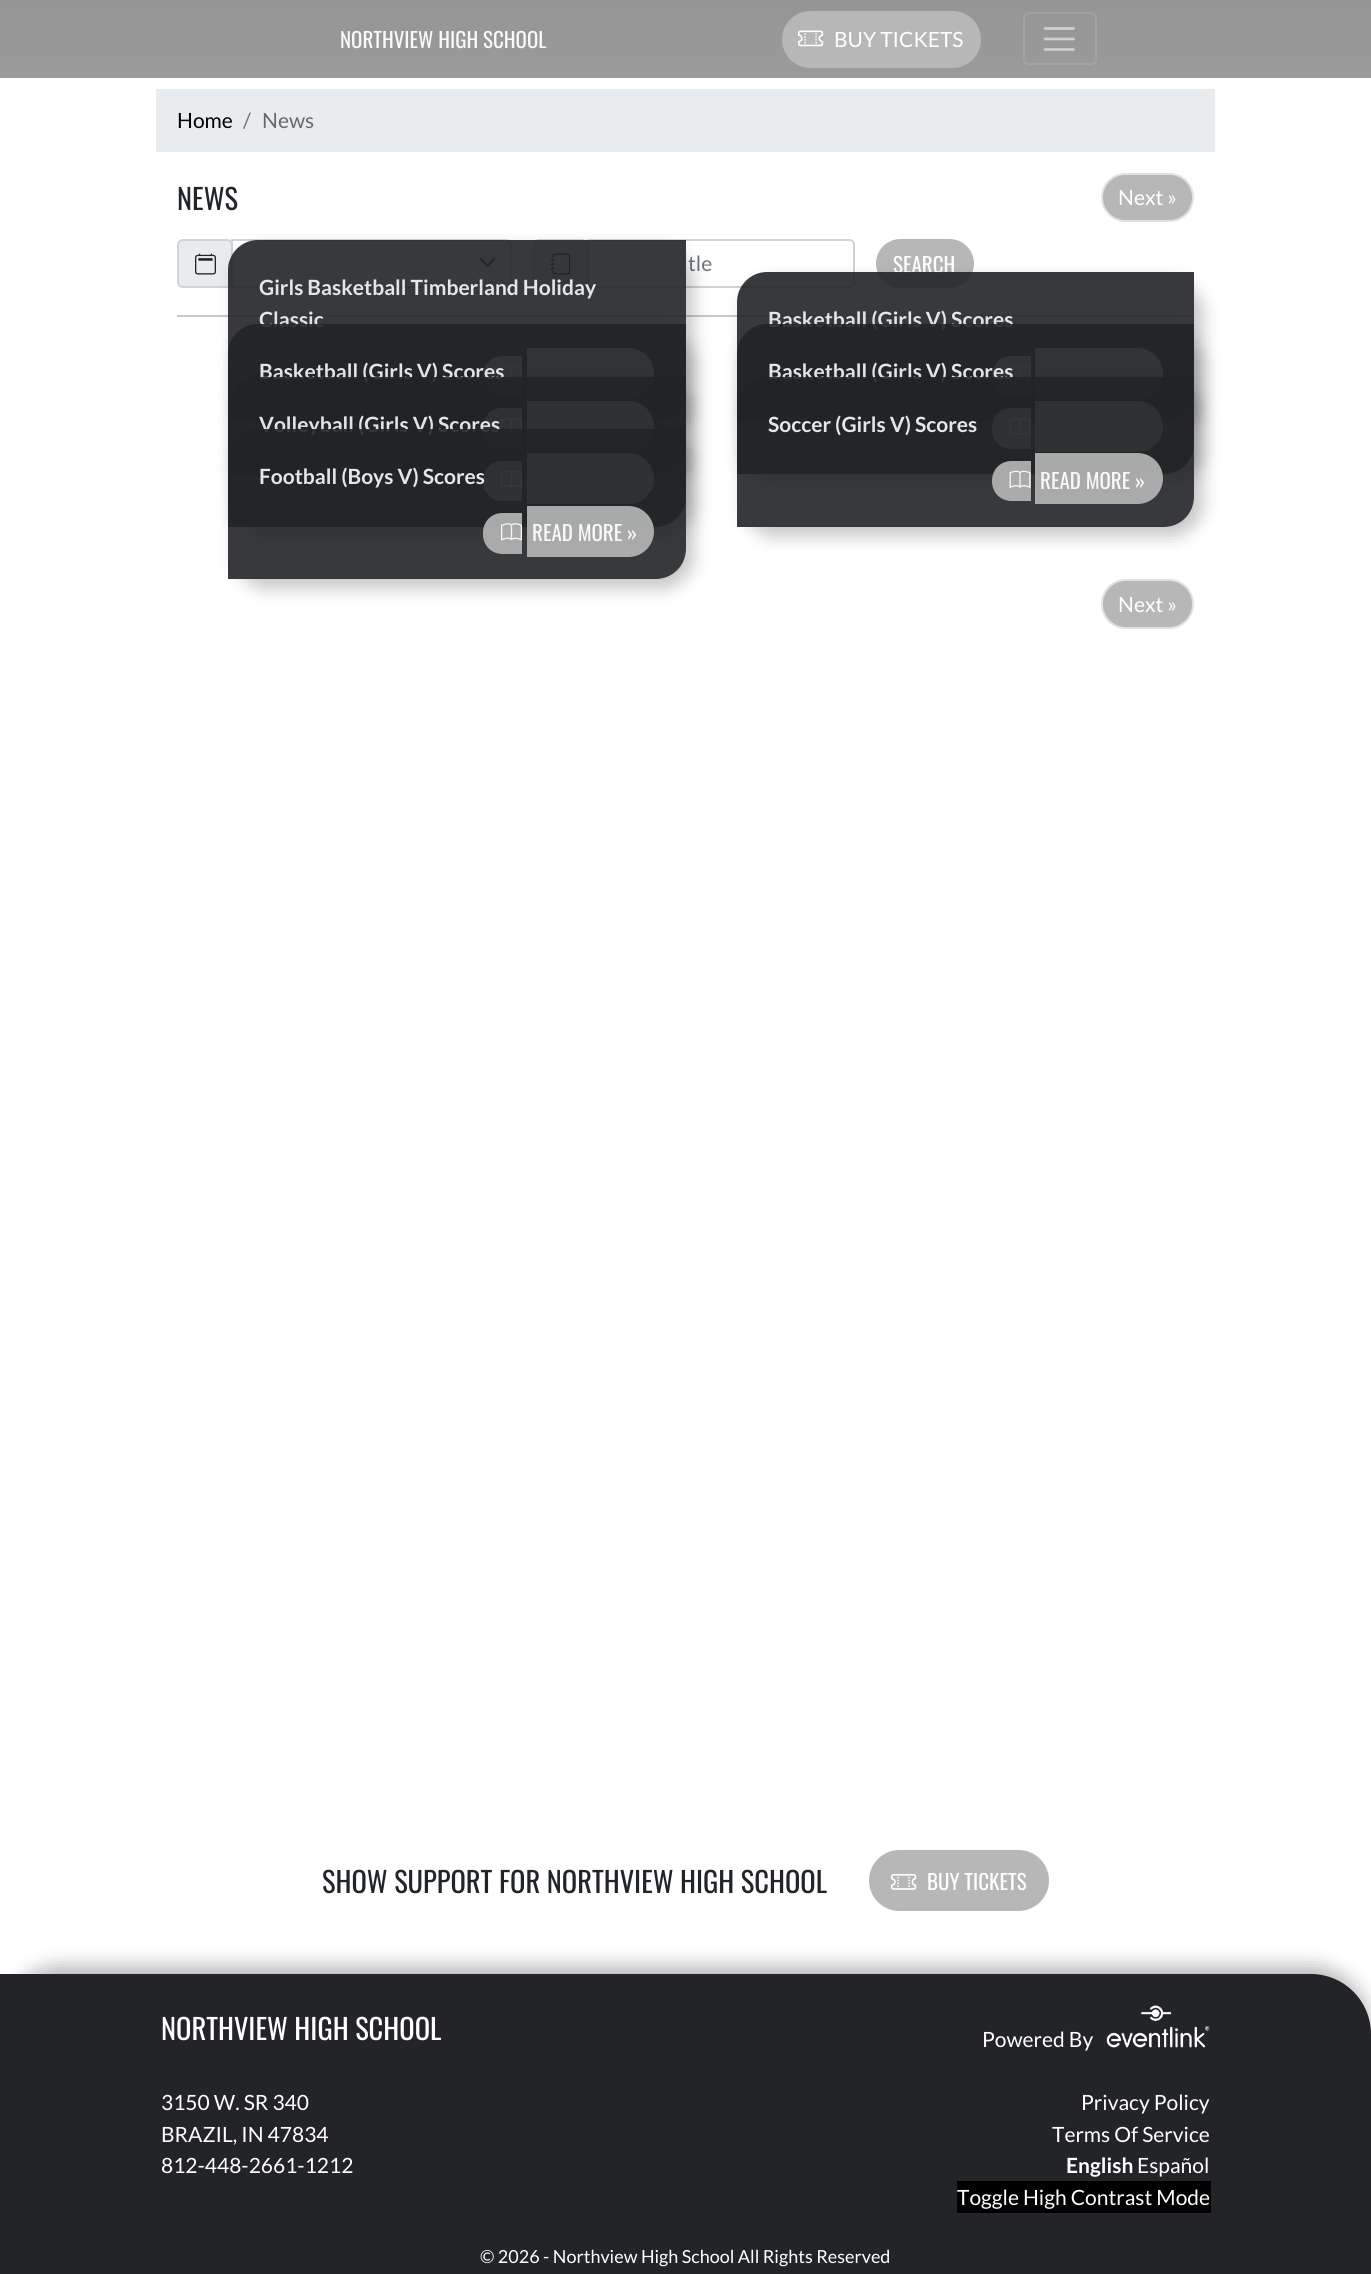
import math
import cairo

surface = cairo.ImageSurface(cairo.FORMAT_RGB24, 1371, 2274)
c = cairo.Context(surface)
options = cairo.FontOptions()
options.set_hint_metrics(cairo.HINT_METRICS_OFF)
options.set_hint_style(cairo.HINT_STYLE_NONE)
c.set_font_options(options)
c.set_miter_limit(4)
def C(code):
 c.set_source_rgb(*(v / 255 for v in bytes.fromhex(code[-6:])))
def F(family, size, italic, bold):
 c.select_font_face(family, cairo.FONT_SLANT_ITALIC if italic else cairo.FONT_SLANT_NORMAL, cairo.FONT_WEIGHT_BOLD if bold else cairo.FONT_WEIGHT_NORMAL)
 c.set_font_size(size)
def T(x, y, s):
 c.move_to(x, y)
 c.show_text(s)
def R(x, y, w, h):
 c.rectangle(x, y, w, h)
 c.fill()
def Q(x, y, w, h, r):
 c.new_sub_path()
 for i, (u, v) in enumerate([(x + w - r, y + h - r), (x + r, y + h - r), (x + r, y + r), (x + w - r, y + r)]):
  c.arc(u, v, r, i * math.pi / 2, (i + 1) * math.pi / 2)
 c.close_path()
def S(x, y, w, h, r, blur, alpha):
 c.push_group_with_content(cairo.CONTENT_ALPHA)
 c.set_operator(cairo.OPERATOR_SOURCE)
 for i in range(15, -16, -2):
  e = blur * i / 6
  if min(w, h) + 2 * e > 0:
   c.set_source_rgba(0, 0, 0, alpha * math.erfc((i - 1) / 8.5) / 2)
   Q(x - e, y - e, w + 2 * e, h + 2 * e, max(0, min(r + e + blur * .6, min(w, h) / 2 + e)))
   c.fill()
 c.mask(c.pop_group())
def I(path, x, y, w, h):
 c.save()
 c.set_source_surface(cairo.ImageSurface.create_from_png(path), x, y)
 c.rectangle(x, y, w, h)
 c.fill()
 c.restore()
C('ffffff')
c.paint()
gradient = cairo.LinearGradient(686,0,686,1050)
gradient.add_color_stop_rgba(0,0.584,0.584,0.584,1)
gradient.add_color_stop_rgba(.21,0.651,0.651,0.651,1)
gradient.add_color_stop_rgba(1,0.702,0.702,0.702,1)
gradient.add_color_stop_rgba(1,0.651,0.651,0.651,1)
c.set_source(gradient)
R(0,0,1371,78)
F('Oswald',21,0,0)
C('f8f9fa')
T(340,48,'NORTHVIEW HIGH SCHOOL')
C('b7b7b7')
Q(782,11,199,57,28.5)
c.fill()
I('1.png',798,30,26,17)
F('Lato',21,0,0)
C('ffffff')
T(834,47,'BUY TICKETS')
Q(1024,13,72,51,5)
c.set_source_rgba(1,1,1,0.1)
c.stroke()
c.new_path()
c.move_to(1045,28.5)
c.line_to(1073.5,28.5)
c.move_to(1045,39)
c.line_to(1073.5,39)
c.move_to(1045,49.5)
c.line_to(1073.5,49.5)
C('d1d1d1')
c.set_line_width(2.6)
c.set_line_cap(cairo.LINE_CAP_ROUND)
c.stroke()
C('e9ecef')
R(156,89,1059,63)
C('000000')
T(177,128,'Home')
C('6c757d')
T(243,128,'/')
C('676767')
T(262,128,'News')
F('Oswald',28.5,0,0)
C('212529')
T(177,210,'NEWS')
C('b7b7b7')
Q(1102,174,91,47,23.5)
c.fill_preserve()
C('dee2e6')
c.set_line_width(2)
c.set_line_cap(cairo.LINE_CAP_BUTT)
c.stroke()
F('Lato',21,0,0)
C('ffffff')
T(1118,205,'Next »')
C('e9ecef')
Q(178,240,54,47,5)
c.fill_preserve()
C('ced4da')
c.stroke()
I('2.png',195,253,21,22)
c.new_path()
c.move_to(481,259)
c.line_to(487.5,266)
c.line_to(494,259)
C('343a40')
c.set_line_width(2.2)
c.set_line_cap(cairo.LINE_CAP_ROUND)
c.set_line_join(cairo.LINE_JOIN_ROUND)
c.stroke()
c.new_path()
c.move_to(232,240)
c.line_to(506,240)
c.curve_to(509,240,511,242,511,245)
c.line_to(511,282)
c.curve_to(511,285,509,287,506,287)
c.line_to(232,287)
c.close_path()
C('ced4da')
c.set_line_width(2)
c.set_line_cap(cairo.LINE_CAP_BUTT)
c.set_line_join(cairo.LINE_JOIN_MITER)
c.stroke()
C('e9ecef')
Q(534,240,53,47,5)
c.fill_preserve()
C('ced4da')
c.stroke()
I('3.png',550,253,21,22)
c.new_path()
c.move_to(588,240)
c.line_to(849,240)
c.curve_to(852,240,854,242,854,245)
c.line_to(854,282)
c.curve_to(854,285,852,287,849,287)
c.line_to(588,287)
c.close_path()
c.stroke()
C('6c757d')
T(688,271,'tle')
C('b7b7b7')
Q(876,239,98,49,24.5)
c.fill()
F('Oswald',21,0,0)
C('ffffff')
T(893,273,'SEARCH')
C('c8c9ca')
R(177,315,1017,2)
c.save()
c.set_fill_rule(cairo.FILL_RULE_EVEN_ODD)
c.new_path()
c.move_to(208,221)
c.line_to(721,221)
c.line_to(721,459)
c.line_to(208,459)
c.close_path()
c.move_to(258,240)
c.line_to(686,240)
c.line_to(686,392)
c.curve_to(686,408.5,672.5,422,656,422)
c.line_to(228,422)
c.line_to(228,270)
c.curve_to(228,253.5,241.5,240,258,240)
c.close_path()
c.clip()
C('000000')
S(236,249,457,182,30,9,.24)
c.restore()
c.set_source_rgba(0.133,0.141,0.153,0.9)
c.new_path()
c.move_to(258,240)
c.line_to(686,240)
c.line_to(686,392)
c.curve_to(686,408.5,672.5,422,656,422)
c.line_to(228,422)
c.line_to(228,270)
c.curve_to(228,253.5,241.5,240,258,240)
c.close_path()
c.fill()
F('Lato',21,0,1)
C('e5e6e7')
T(259,295,'Girls Basketball Timberland Holiday')
T(259,327,'Classic')
C('bebebe')
c.new_path()
c.move_to(502.5,356)
c.line_to(522,356)
c.line_to(522,396)
c.line_to(502.5,396)
c.curve_to(491.5,396,483,387.5,483,376.5)
c.line_to(483,375.5)
c.curve_to(483,364.5,491.5,356,502.5,356)
c.close_path()
c.fill()
c.new_path()
c.move_to(527,348)
c.line_to(628.5,348)
c.curve_to(642.5,348,654,359.5,654,373.5)
c.curve_to(654,387.5,642.5,399,628.5,399)
c.line_to(527,399)
c.close_path()
c.fill()
I('4.png',501,365,21,18)
c.save()
c.set_fill_rule(cairo.FILL_RULE_EVEN_ODD)
c.new_path()
c.move_to(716,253)
c.line_to(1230,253)
c.line_to(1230,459)
c.line_to(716,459)
c.close_path()
c.move_to(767,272)
c.line_to(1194,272)
c.line_to(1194,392)
c.curve_to(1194,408.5,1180.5,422,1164,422)
c.line_to(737,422)
c.line_to(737,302)
c.curve_to(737,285.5,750.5,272,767,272)
c.close_path()
c.clip()
C('000000')
S(744,281,458,150,30,9,.24)
c.restore()
c.set_source_rgba(0.133,0.141,0.153,0.9)
c.new_path()
c.move_to(767,272)
c.line_to(1194,272)
c.line_to(1194,392)
c.curve_to(1194,408.5,1180.5,422,1164,422)
c.line_to(737,422)
c.line_to(737,302)
c.curve_to(737,285.5,750.5,272,767,272)
c.close_path()
c.fill()
C('e5e6e7')
T(768,327,'Basketball (Girls V) Scores')
C('bebebe')
c.new_path()
c.move_to(1011.5,356)
c.line_to(1031,356)
c.line_to(1031,396)
c.line_to(1011.5,396)
c.curve_to(1000.5,396,992,387.5,992,376.5)
c.line_to(992,375.5)
c.curve_to(992,364.5,1000.5,356,1011.5,356)
c.close_path()
c.fill()
c.new_path()
c.move_to(1035,348)
c.line_to(1137.5,348)
c.curve_to(1151.5,348,1163,359.5,1163,373.5)
c.curve_to(1163,387.5,1151.5,399,1137.5,399)
c.line_to(1035,399)
c.close_path()
c.fill()
I('5.png',1009,365,22,18)
c.save()
c.set_fill_rule(cairo.FILL_RULE_EVEN_ODD)
c.new_path()
c.move_to(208,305)
c.line_to(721,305)
c.line_to(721,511)
c.line_to(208,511)
c.close_path()
c.move_to(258,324)
c.line_to(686,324)
c.line_to(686,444)
c.curve_to(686,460.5,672.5,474,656,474)
c.line_to(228,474)
c.line_to(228,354)
c.curve_to(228,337.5,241.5,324,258,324)
c.close_path()
c.clip()
C('000000')
S(236,333,457,150,30,9,.24)
c.restore()
c.set_source_rgba(0.133,0.141,0.153,0.9)
c.new_path()
c.move_to(258,324)
c.line_to(686,324)
c.line_to(686,444)
c.curve_to(686,460.5,672.5,474,656,474)
c.line_to(228,474)
c.line_to(228,354)
c.curve_to(228,337.5,241.5,324,258,324)
c.close_path()
c.fill()
C('e5e6e7')
T(259,379,'Basketball (Girls V) Scores')
c.set_source_rgba(0.718,0.718,0.718,0.9)
c.new_path()
c.move_to(502.5,408)
c.line_to(522,408)
c.line_to(522,449)
c.line_to(502.5,449)
c.curve_to(491.5,449,483,440.5,483,429.5)
c.line_to(483,427.5)
c.curve_to(483,416.5,491.5,408,502.5,408)
c.close_path()
c.fill()
c.new_path()
c.move_to(527,401)
c.line_to(628.5,401)
c.curve_to(642.5,401,654,412.5,654,426.5)
c.curve_to(654,440.5,642.5,452,628.5,452)
c.line_to(527,452)
c.close_path()
c.fill()
I('6.png',501,418,21,18)
c.save()
c.set_fill_rule(cairo.FILL_RULE_EVEN_ODD)
c.new_path()
c.move_to(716,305)
c.line_to(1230,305)
c.line_to(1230,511)
c.line_to(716,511)
c.close_path()
c.move_to(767,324)
c.line_to(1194,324)
c.line_to(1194,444)
c.curve_to(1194,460.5,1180.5,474,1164,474)
c.line_to(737,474)
c.line_to(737,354)
c.curve_to(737,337.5,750.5,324,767,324)
c.close_path()
c.clip()
C('000000')
S(744,333,458,150,30,9,.24)
c.restore()
c.set_source_rgba(0.133,0.141,0.153,0.9)
c.new_path()
c.move_to(767,324)
c.line_to(1194,324)
c.line_to(1194,444)
c.curve_to(1194,460.5,1180.5,474,1164,474)
c.line_to(737,474)
c.line_to(737,354)
c.curve_to(737,337.5,750.5,324,767,324)
c.close_path()
c.fill()
C('e5e6e7')
T(768,379,'Basketball (Girls V) Scores')
c.set_source_rgba(0.718,0.718,0.718,0.9)
c.new_path()
c.move_to(1011.5,408)
c.line_to(1031,408)
c.line_to(1031,449)
c.line_to(1011.5,449)
c.curve_to(1000.5,449,992,440.5,992,429.5)
c.line_to(992,427.5)
c.curve_to(992,416.5,1000.5,408,1011.5,408)
c.close_path()
c.fill()
c.new_path()
c.move_to(1035,401)
c.line_to(1137.5,401)
c.curve_to(1151.5,401,1163,412.5,1163,426.5)
c.curve_to(1163,440.5,1151.5,452,1137.5,452)
c.line_to(1035,452)
c.close_path()
c.fill()
I('7.png',1009,418,22,18)
c.save()
c.set_fill_rule(cairo.FILL_RULE_EVEN_ODD)
c.new_path()
c.move_to(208,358)
c.line_to(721,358)
c.line_to(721,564)
c.line_to(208,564)
c.close_path()
c.move_to(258,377)
c.line_to(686,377)
c.line_to(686,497)
c.curve_to(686,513.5,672.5,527,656,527)
c.line_to(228,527)
c.line_to(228,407)
c.curve_to(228,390.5,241.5,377,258,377)
c.close_path()
c.clip()
C('000000')
S(236,386,457,150,30,9,.24)
c.restore()
c.set_source_rgba(0.133,0.141,0.153,0.9)
c.new_path()
c.move_to(258,377)
c.line_to(686,377)
c.line_to(686,497)
c.curve_to(686,513.5,672.5,527,656,527)
c.line_to(228,527)
c.line_to(228,407)
c.curve_to(228,390.5,241.5,377,258,377)
c.close_path()
c.fill()
C('e5e6e7')
T(259,432,'Volleyball (Girls V) Scores')
c.set_source_rgba(0.718,0.718,0.718,0.9)
c.new_path()
c.move_to(502.5,461)
c.line_to(522,461)
c.line_to(522,501)
c.line_to(502.5,501)
c.curve_to(491.5,501,483,492.5,483,481.5)
c.line_to(483,480.5)
c.curve_to(483,469.5,491.5,461,502.5,461)
c.close_path()
c.fill()
c.new_path()
c.move_to(527,453)
c.line_to(628.5,453)
c.curve_to(642.5,453,654,464.5,654,478.5)
c.curve_to(654,492.5,642.5,504,628.5,504)
c.line_to(527,504)
c.close_path()
c.fill()
I('8.png',501,470,21,18)
c.save()
c.set_fill_rule(cairo.FILL_RULE_EVEN_ODD)
c.new_path()
c.move_to(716,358)
c.line_to(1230,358)
c.line_to(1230,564)
c.line_to(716,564)
c.close_path()
c.move_to(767,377)
c.line_to(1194,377)
c.line_to(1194,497)
c.curve_to(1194,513.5,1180.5,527,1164,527)
c.line_to(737,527)
c.line_to(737,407)
c.curve_to(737,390.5,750.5,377,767,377)
c.close_path()
c.clip()
C('000000')
S(744,386,458,150,30,9,.24)
c.restore()
c.set_source_rgba(0.133,0.141,0.153,0.9)
c.new_path()
c.move_to(767,377)
c.line_to(1194,377)
c.line_to(1194,497)
c.curve_to(1194,513.5,1180.5,527,1164,527)
c.line_to(737,527)
c.line_to(737,407)
c.curve_to(737,390.5,750.5,377,767,377)
c.close_path()
c.fill()
C('e5e6e7')
T(768,432,'Soccer (Girls V) Scores')
c.set_source_rgba(0.718,0.718,0.718,0.9)
c.new_path()
c.move_to(1011.5,461)
c.line_to(1031,461)
c.line_to(1031,501)
c.line_to(1011.5,501)
c.curve_to(1000.5,501,992,492.5,992,481.5)
c.line_to(992,480.5)
c.curve_to(992,469.5,1000.5,461,1011.5,461)
c.close_path()
c.fill()
c.new_path()
c.move_to(1035,453)
c.line_to(1137.5,453)
c.curve_to(1151.5,453,1163,464.5,1163,478.5)
c.curve_to(1163,492.5,1151.5,504,1137.5,504)
c.line_to(1035,504)
c.close_path()
c.fill()
I('9.png',1009,470,22,18)
F('Oswald',21,0,0)
C('f8f9fa')
T(1040,489,'READ MORE »')
c.save()
c.set_fill_rule(cairo.FILL_RULE_EVEN_ODD)
c.new_path()
c.move_to(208,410)
c.line_to(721,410)
c.line_to(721,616)
c.line_to(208,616)
c.close_path()
c.move_to(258,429)
c.line_to(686,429)
c.line_to(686,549)
c.curve_to(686,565.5,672.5,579,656,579)
c.line_to(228,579)
c.line_to(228,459)
c.curve_to(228,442.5,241.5,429,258,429)
c.close_path()
c.clip()
C('000000')
S(236,438,457,150,30,9,.24)
c.restore()
c.set_source_rgba(0.133,0.141,0.153,0.9)
c.new_path()
c.move_to(258,429)
c.line_to(686,429)
c.line_to(686,549)
c.curve_to(686,565.5,672.5,579,656,579)
c.line_to(228,579)
c.line_to(228,459)
c.curve_to(228,442.5,241.5,429,258,429)
c.close_path()
c.fill()
F('Lato',21,0,1)
C('e5e6e7')
T(259,484,'Football (Boys V) Scores')
c.set_source_rgba(0.718,0.718,0.718,0.9)
c.new_path()
c.move_to(502.5,513)
c.line_to(522,513)
c.line_to(522,554)
c.line_to(502.5,554)
c.curve_to(491.5,554,483,545.5,483,534.5)
c.line_to(483,532.5)
c.curve_to(483,521.5,491.5,513,502.5,513)
c.close_path()
c.fill()
c.new_path()
c.move_to(527,506)
c.line_to(628.5,506)
c.curve_to(642.5,506,654,517.5,654,531.5)
c.curve_to(654,545.5,642.5,557,628.5,557)
c.line_to(527,557)
c.close_path()
c.fill()
I('6.png',501,523,21,18)
F('Oswald',21,0,0)
C('f8f9fa')
T(532,541,'READ MORE »')
C('b7b7b7')
Q(1102,580,91,48,24)
c.fill_preserve()
C('dee2e6')
c.stroke()
F('Lato',21,0,0)
C('ffffff')
T(1118,612,'Next »')
F('Oswald',28.5,0,0)
C('212529')
T(322,1893,'SHOW SUPPORT FOR NORTHVIEW HIGH SCHOOL')
C('b7b7b7')
Q(869,1850,180,61,30.5)
c.fill()
I('10.png',891,1874,26,16)
F('Oswald',21,0,0)
C('ffffff')
T(927,1890,'BUY TICKETS')
C('000000')
S(0,1965,1371,300,60,9,.27)
C('222427')
c.new_path()
c.move_to(0,1974)
c.line_to(1311,1974)
c.curve_to(1344,1974,1371,2001,1371,2034)
c.line_to(1371,2274)
c.line_to(0,2274)
c.close_path()
c.fill()
F('Oswald',28.5,0,0)
C('ffffff')
T(161,2040,'NORTHVIEW HIGH SCHOOL')
F('Lato',21,0,0)
T(982,2047,'Powered By')
I('11.png',1106,2005,104,43)
T(161,2110,'3150 W. SR 340')
T(161,2142,'BRAZIL, IN 47834')
T(161,2173,'812-448-2661-1212')
T(1081,2110,'Privacy Policy')
T(1052,2142,'Terms Of Service')
F('Lato',21,0,1)
T(1066,2173,'English')
F('Lato',21,0,0)
T(1137,2173,'Español')
C('000000')
R(957,2181,254,32)
C('ffffff')
T(957,2205,'Toggle High Contrast Mode')
F('Lato',18,0,0)
T(480,2263,'© 2026 - Northview High School All Rights Reserved')
surface.write_to_png('o.png')
